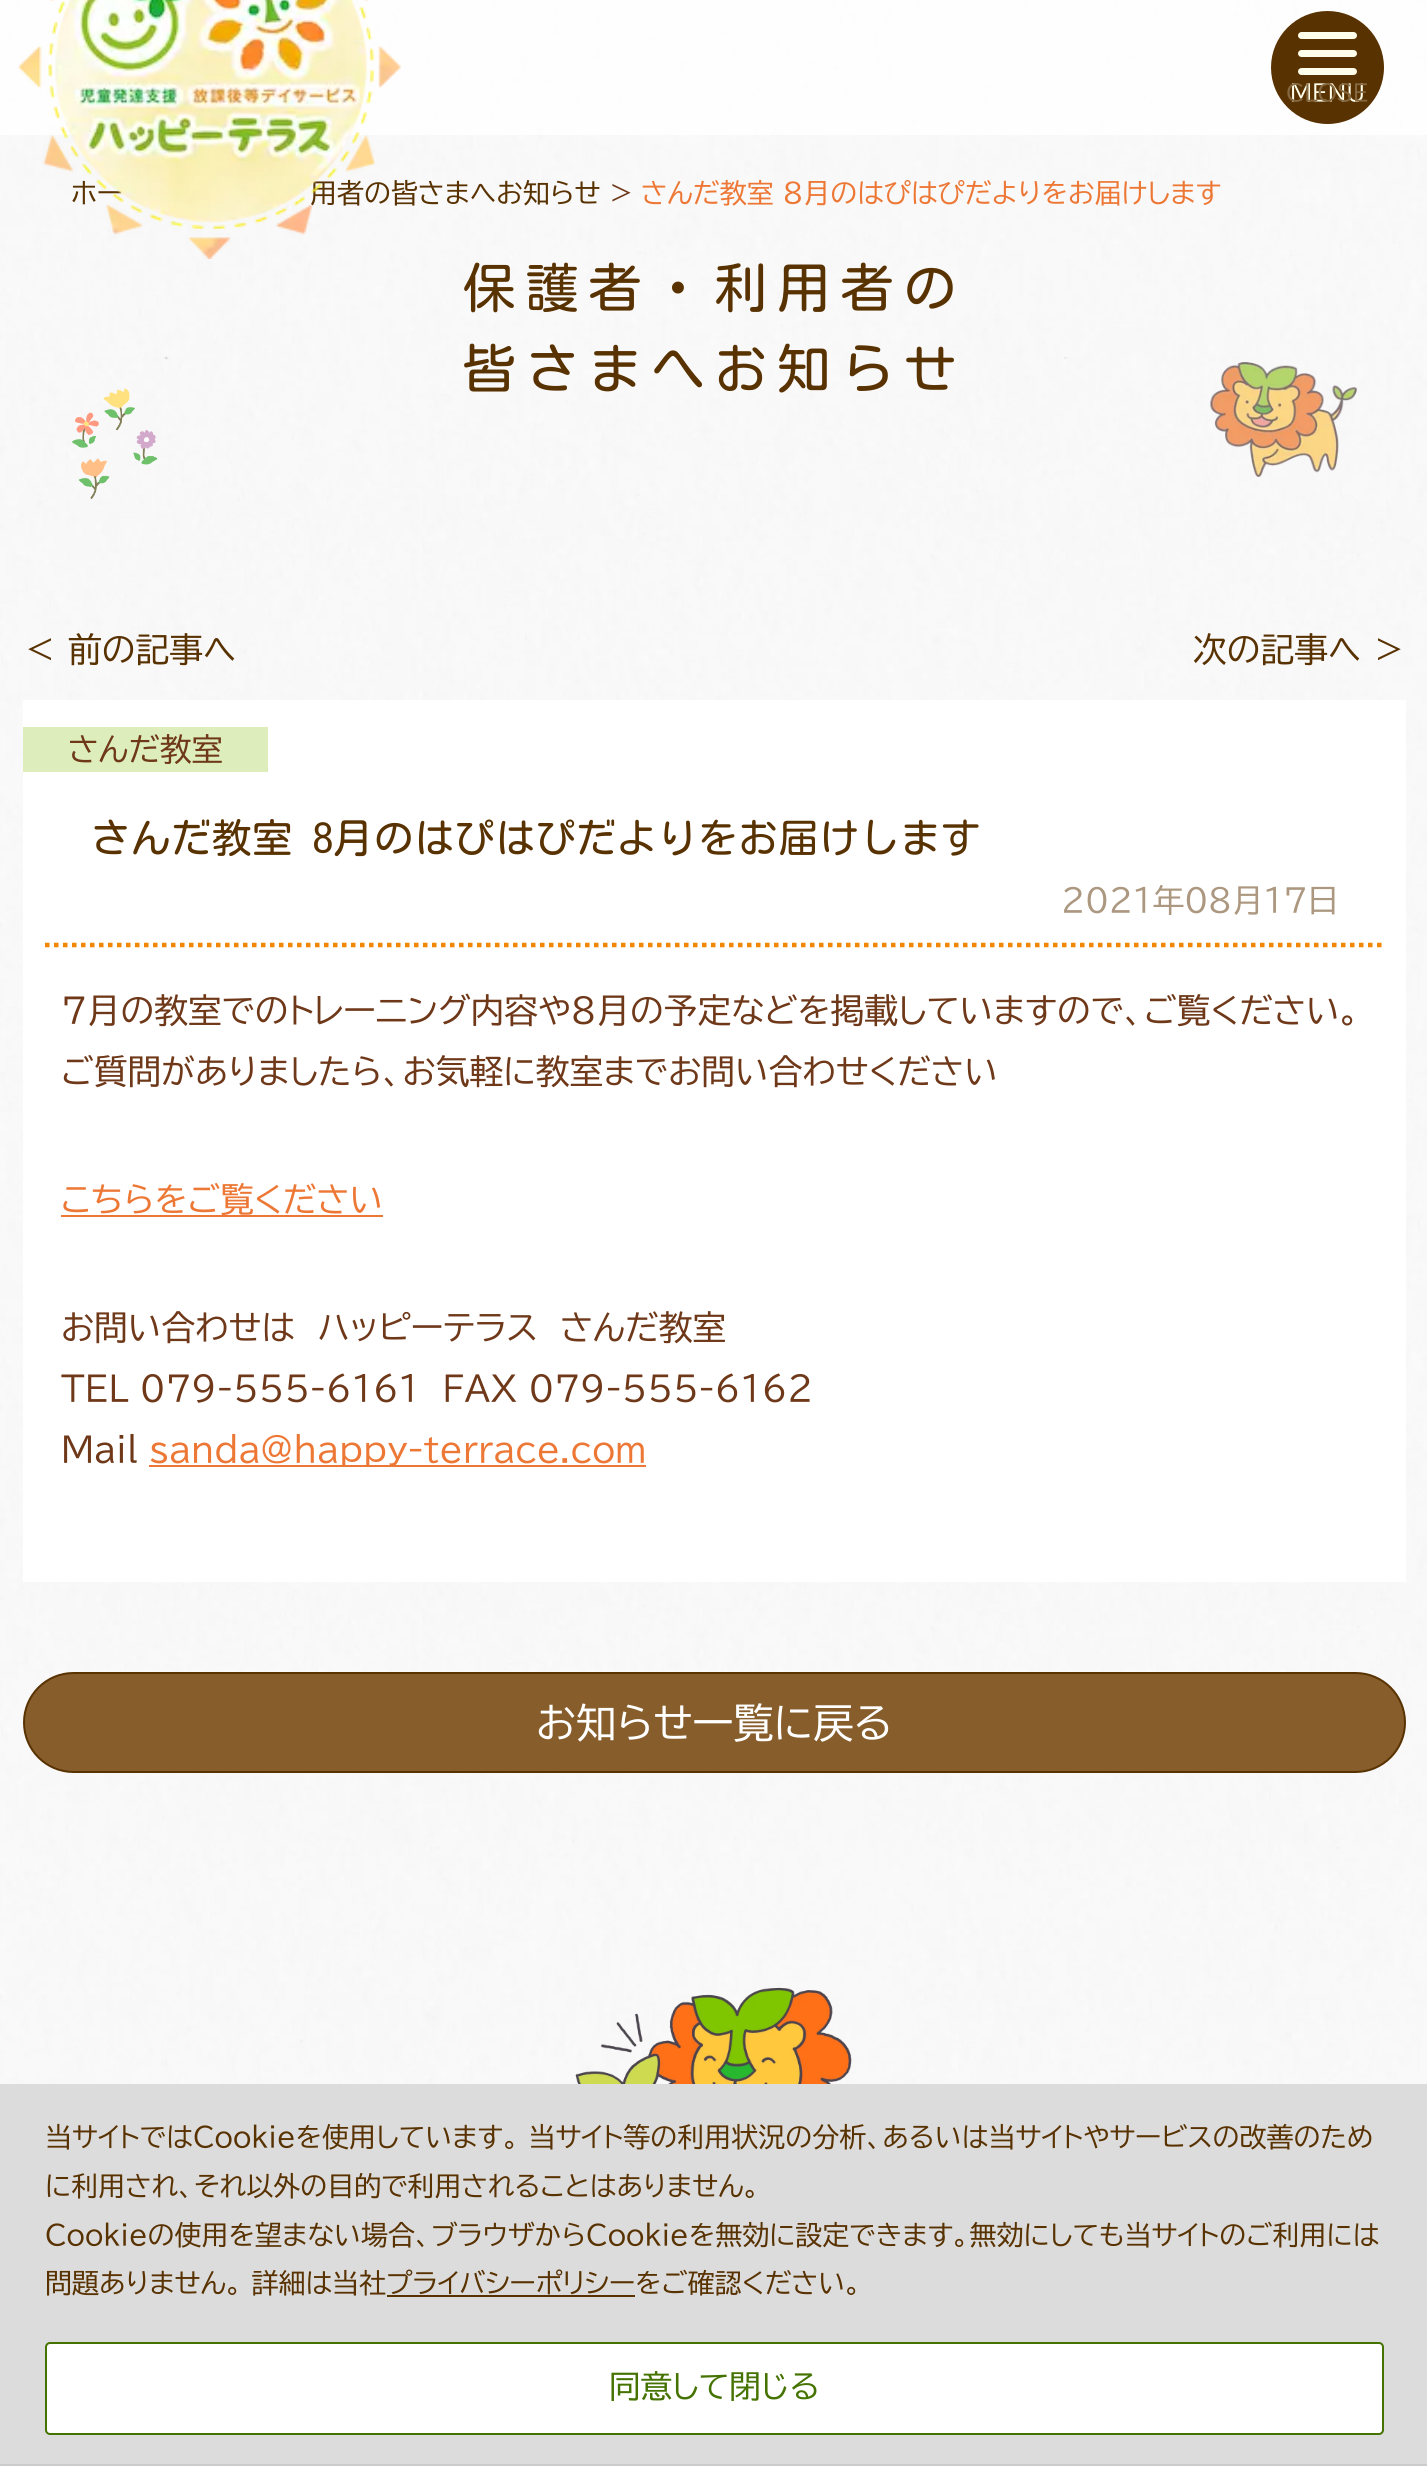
import math
import cairo

surface = cairo.ImageSurface(cairo.FORMAT_RGB24, 1427, 2466)
c = cairo.Context(surface)
options = cairo.FontOptions()
options.set_hint_metrics(cairo.HINT_METRICS_OFF)
options.set_hint_style(cairo.HINT_STYLE_NONE)
c.set_font_options(options)
c.set_miter_limit(4)
def C(code):
 c.set_source_rgb(*(v / 255 for v in bytes.fromhex(code[-6:])))
def F(family, size, italic, bold):
 c.select_font_face(family, cairo.FONT_SLANT_ITALIC if italic else cairo.FONT_SLANT_NORMAL, cairo.FONT_WEIGHT_BOLD if bold else cairo.FONT_WEIGHT_NORMAL)
 c.set_font_size(size)
def T(x, y, s):
 c.move_to(x, y)
 c.show_text(s)
def L(x, y, s, letter, word):
 c.move_to(x, y)
 for ch in s:
  c.show_text(ch)
  c.rel_move_to(letter + word * (ch == ' '), 0)
def R(x, y, w, h):
 c.rectangle(x, y, w, h)
 c.fill()
def Q(x, y, w, h, r):
 c.new_sub_path()
 for i, (u, v) in enumerate([(x + w - r, y + h - r), (x + r, y + h - r), (x + r, y + r), (x + w - r, y + r)]):
  c.arc(u, v, r, i * math.pi / 2, (i + 1) * math.pi / 2)
 c.close_path()
def I(path, x, y, w, h):
 c.save()
 c.set_source_surface(cairo.ImageSurface.create_from_png(path), x, y)
 c.rectangle(x, y, w, h)
 c.fill()
 c.restore()
C('ffffff')
c.paint()
I('1.png',0,0,1427,2084)
c.set_source_rgba(1,1,1,0.8)
R(0,0,1427,135)
F('BIZ UDPGothic',27,0,0)
C('593202')
T(71,203,'ホー')
T(310,203,'用者の皆さまへお知らせ')
I('2.png',18,0,383,259)
c.arc(1327.5,67.5,56.5,0,2 * math.pi)
c.fill()
C('ffffeb')
Q(1298,50,59,7,3.5)
c.fill()
Q(1298,32,59,7,3.5)
c.fill()
Q(1298,68,59,7,3.5)
c.fill()
F('BIZ UDPGothic',22.5,0,0)
T(1290,101,'MENU')
C('85683f')
T(1286,101,'CLOSE')
F('BIZ UDPGothic',27,0,0)
C('6e3819')
T(610,203,'>')
C('ed7836')
T(641,203,'さんだ教室 8月のはぴはぴだよりをお届けします')
F('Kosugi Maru',54,0,0)
C('593202')
L(462,308,'保護者・利用者の',9,0)
L(462,389,'皆さまへお知らせ',9,0)
I('3.png',72,388,86,111)
I('4.png',1210,362,147,115)
F('BIZ UDPGothic',33.75,0,0)
T(23,662,'＜ 前の記事へ')
T(1193,662,'次の記事へ ＞')
C('ffffff')
R(23,700,1383,882)
C('ddedbb')
R(23,727,245,45)
F('BIZ UDPGothic',31.5,0,0)
C('6e3819')
T(68,761,'さんだ教室')
c.new_path()
c.move_to(45,945)
c.line_to(1384,945)
C('f28705')
c.set_line_width(4.5)
c.set_dash([4.5,4.5])
c.stroke()
F('Kosugi Maru',40.5,0,0)
C('593202')
T(90,853,'さんだ教室 8月のはぴはぴだよりをお届けします')
F('BIZ UDPGothic',31.5,0,0)
C('ac9880')
T(1061,912,'2021年08月17日')
F('BIZ UDPGothic',33.75,0,0)
C('6e3819')
T(61,1023,'7月の教室でのトレーニング内容や8月の予定などを掲載していますので、ご覧ください。')
T(61,1084,'ご質問がありましたら、お気軽に教室までお問い合わせください')
C('ed7836')
R(61,1215,322,2)
T(61,1212,'こちらをご覧ください')
C('6e3819')
T(61,1340,'お問い合わせは　ハッピーテラス　さんだ教室')
T(61,1401,'TEL 079-555-6161　FAX 079-555-6162')
T(61,1462,'Mail')
C('ed7836')
R(149,1465,497,2)
T(149,1462,'sanda@happy-terrace.com')
C('865d2b')
Q(24,1673,1381,99,49.5)
c.fill_preserve()
C('593202')
c.set_line_width(2)
c.set_dash([])
c.stroke()
F('BIZ UDPGothic',40.5,0,0)
C('ffffff')
T(536,1738,'お知らせ一覧に戻る')
I('5.png',575,1987,277,97)
C('dcdcdc')
R(0,2084,1427,380)
C('cccccc')
R(0,2464,1427,2)
F('BIZ UDPGothic',27,0,0)
C('593202')
T(45,2147,'当サイトではCookieを使用しています。 当サイト等の利用状況の分析、あるいは当サイトやサービスの改善のため')
T(45,2196,'に利用され、それ以外の目的で利用されることはありません。')
T(45,2245,'Cookieの使用を望まない場合、ブラウザからCookieを無効に設定できます。無効にしても当サイトのご利用には')
T(45,2293,'問題ありません。 詳細は当社プライバシーポリシーをご確認ください。')
R(387,2295,248,2)
C('ffffff')
Q(46,2343,1337,91,4)
c.fill_preserve()
C('457301')
c.stroke()
F('BIZ UDPGothic',31.5,0,0)
T(609,2398,'同意して閉じる')
surface.write_to_png('o.png')
